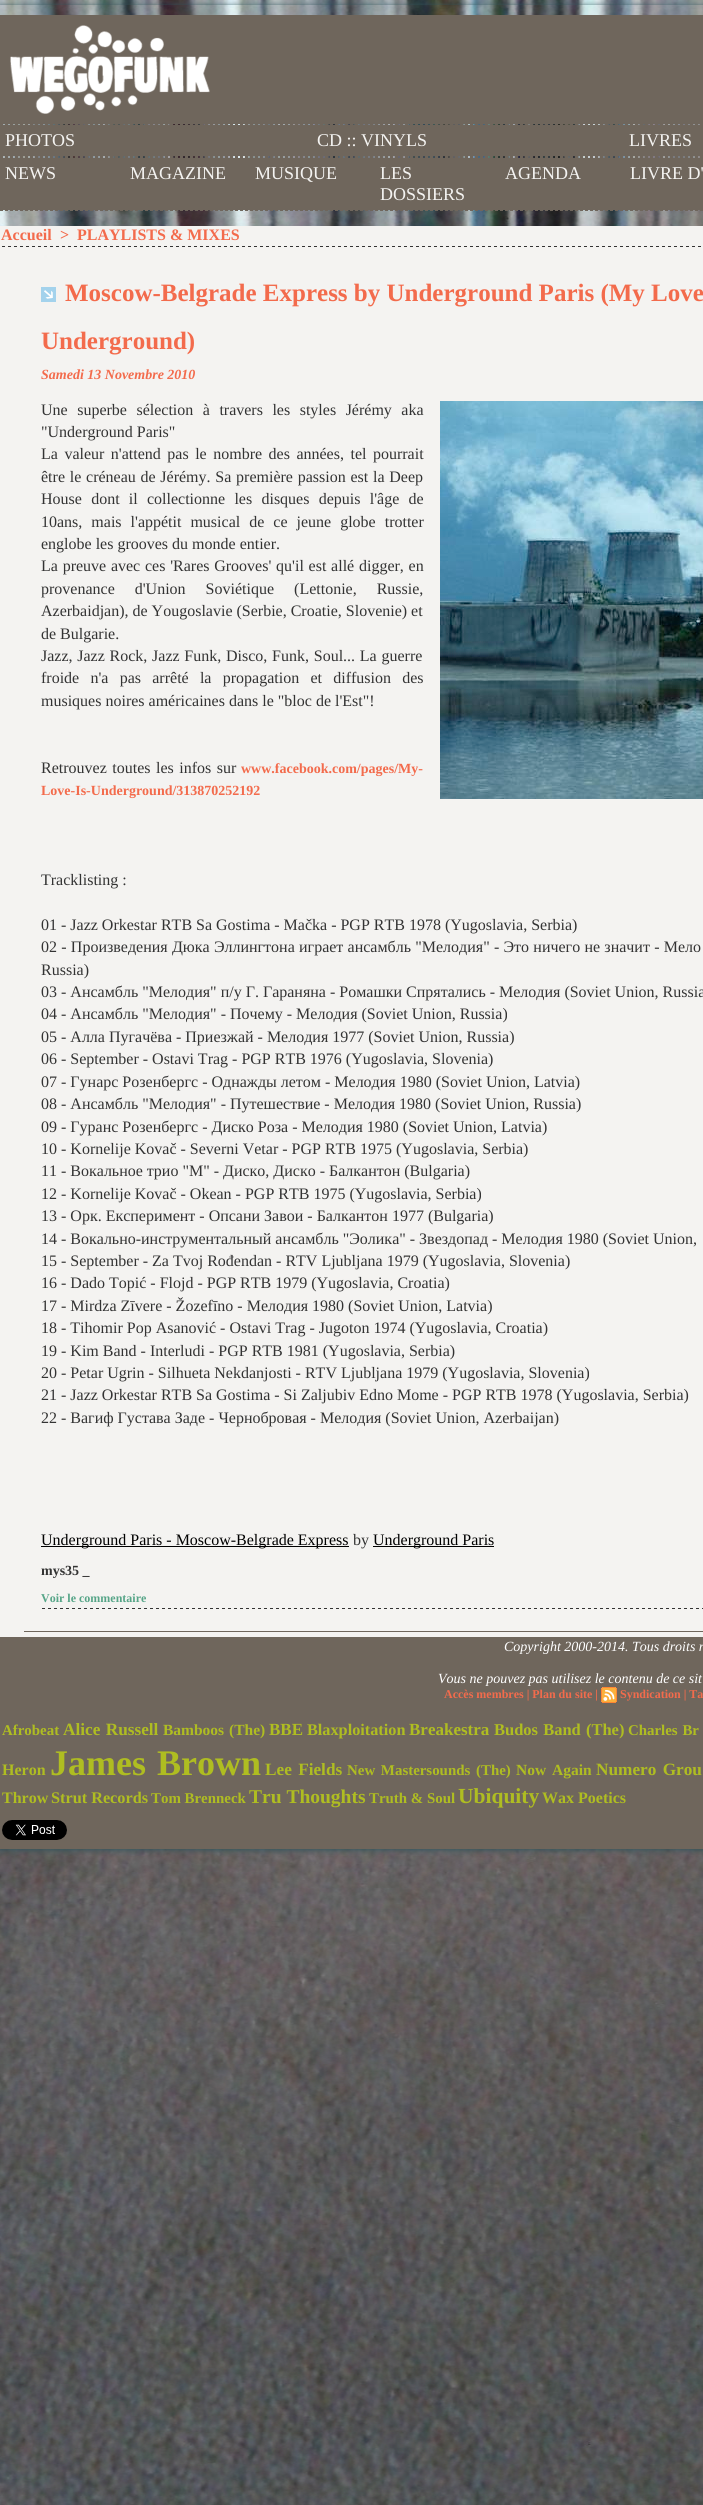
import math
import cairo

surface = cairo.ImageSurface(cairo.FORMAT_RGB24, 703, 2505)
c = cairo.Context(surface)
options = cairo.FontOptions()
options.set_hint_metrics(cairo.HINT_METRICS_OFF)
options.set_hint_style(cairo.HINT_STYLE_NONE)
c.set_font_options(options)
c.set_miter_limit(4)
def C(code):
 c.set_source_rgb(*(v / 255 for v in bytes.fromhex(code[-6:])))
def F(family, size, italic, bold):
 c.select_font_face(family, cairo.FONT_SLANT_ITALIC if italic else cairo.FONT_SLANT_NORMAL, cairo.FONT_WEIGHT_BOLD if bold else cairo.FONT_WEIGHT_NORMAL)
 c.set_font_size(size)
def T(x, y, s):
 c.move_to(x, y)
 c.show_text(s)
def L(x, y, s, letter, word):
 c.move_to(x, y)
 for ch in s:
  c.show_text(ch)
  c.rel_move_to(letter + word * (ch == ' '), 0)
def R(x, y, w, h):
 c.rectangle(x, y, w, h)
 c.fill()
def Q(x, y, w, h, r):
 c.new_sub_path()
 for i, (u, v) in enumerate([(x + w - r, y + h - r), (x + r, y + h - r), (x + r, y + r), (x + w - r, y + r)]):
  c.arc(u, v, r, i * math.pi / 2, (i + 1) * math.pi / 2)
 c.close_path()
def S(x, y, w, h, r, blur, alpha):
 c.push_group_with_content(cairo.CONTENT_ALPHA)
 c.set_operator(cairo.OPERATOR_SOURCE)
 for i in range(15, -16, -2):
  e = blur * i / 6
  if min(w, h) + 2 * e > 0:
   c.set_source_rgba(0, 0, 0, alpha * math.erfc((i - 1) / 8.5) / 2)
   Q(x - e, y - e, w + 2 * e, h + 2 * e, max(0, min(r + e + blur * .6, min(w, h) / 2 + e)))
   c.fill()
 c.mask(c.pop_group())
def I(path, x, y, w, h):
 c.save()
 c.set_source_surface(cairo.ImageSurface.create_from_png(path), x, y)
 c.rectangle(x, y, w, h)
 c.fill()
 c.restore()
C('ffffff')
c.paint()
I('1.png',0,0,703,2505)
c.save()
c.set_fill_rule(cairo.FILL_RULE_EVEN_ODD)
c.new_path()
c.move_to(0,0)
c.line_to(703,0)
c.line_to(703,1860)
c.line_to(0,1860)
c.close_path()
c.move_to(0,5)
c.line_to(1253,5)
c.line_to(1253,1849)
c.line_to(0,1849)
c.close_path()
c.clip()
C('30555d')
S(0,6,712,1844,0,3,1)
c.restore()
C('6f665c')
R(0,15,703,109)
I('2.png',10,25,200,89)
c.new_path()
c.move_to(0,124.5)
c.line_to(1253,124.5)
c.set_line_width(1)
c.set_dash([3,2])
c.stroke()
c.new_path()
c.move_to(0,156.5)
c.line_to(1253,156.5)
c.stroke()
R(0,125,703,31)
F('Liberation Serif',18,0,0)
C('f4f3f1')
T(5,146,'PHOTOS')
T(317,146,'CD :: VINYLS')
T(629,146,'LIVRES')
c.new_path()
c.move_to(0,157.5)
c.line_to(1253,157.5)
C('6f665c')
c.stroke()
c.new_path()
c.move_to(0,210.5)
c.line_to(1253,210.5)
c.stroke()
R(0,158,703,52)
C('f4f3f1')
T(5,179,'NEWS')
T(130,179,'MAGAZINE')
T(255,179,'MUSIQUE')
T(380,179,'LES')
T(380,200,'DOSSIERS')
T(505,179,'AGENDA')
T(630,179,'LIVRE D\'')
R(0,226,703,1411)
F('Liberation Serif',16,0,1)
C('f36b4c')
T(1,240,'Accueil')
T(60,240,'>')
T(77,240,'PLAYLISTS & MIXES')
I('3.png',2,246,699,1)
C('6f665c')
R(24,1631,679,1)
I('4.png',41,287,15,15)
F('Liberation Serif',25,0,1)
C('f36b4c')
T(65,301,'Moscow-Belgrade Express by Underground Paris (My Love')
T(41,349,'Underground)')
F('Liberation Serif',14,1,1)
T(41,379,'Samedi 13 Novembre 2010')
I('5.png',440,401,263,398)
F('Liberation Serif',16,0,0)
C('333333')
L(41,415,'Une superbe sélection à travers les styles Jérémy aka',0,5.5)
T(41,437,'"Underground Paris"')
L(41,459,'La valeur n\'attend pas le nombre des années, tel pourrait',0,2.5)
L(41,482,'être le créneau de Jérémy. Sa première passion est la Deep',0,.75)
L(41,504,'House dont il collectionne les disques depuis l\'âge de',0,5.25)
L(41,527,'10ans, mais l\'appétit musical de ce jeune globe trotter',0,5)
T(41,549,'englobe les grooves du monde entier.')
L(41,571,'La preuve avec ces \'Rares Grooves\' qu\'il est allé digger, en',0,.75)
L(41,594,'provenance d\'Union Soviétique (Lettonie, Russie,',0,16)
T(41,616,'Azerbaidjan), de Yougoslavie (Serbie, Croatie, Slovenie) et')
T(41,639,'de Bulgarie.')
L(41,661,'Jazz, Jazz Rock, Jazz Funk, Disco, Funk, Soul... La guerre',0,.75)
L(41,683,'froide n\'a pas arrêté la propagation et diffusion des',0,7.25)
T(41,706,'musiques noires américaines dans le "bloc de l\'Est"!')
L(41,773,'Retrouvez toutes les infos sur',0,1.5)
F('Liberation Serif',14,0,1)
C('f36b4c')
T(241,773,'www.facebook.com/pages/My-')
T(41,795,'Love-Is-Underground/313870252192')
F('Liberation Serif',16,0,0)
C('333333')
T(41,885,'Tracklisting :')
T(41,930,'01 - Jazz Orkestar RTB Sa Gostima - Mačka - PGP RTB 1978 (Yugoslavia, Serbia)')
L(41,952,'02 - Произведения Дюка Эллингтона играет ансамбль "Мелодия" - Это ничего не значит - Мело',0,.25)
T(41,975,'Russia)')
T(41,997,'03 - Ансамбль "Мелодия" п/у Г. Гараняна - Ромашки Спрятались - Мелодия (Soviet Union, Russia')
T(41,1019,'04 - Ансамбль "Мелодия" - Почему - Мелодия (Soviet Union, Russia)')
T(41,1042,'05 - Алла Пугачёва - Приезжай - Мелодия 1977 (Soviet Union, Russia)')
T(41,1064,'06 - September - Ostavi Trag - PGP RTB 1976 (Yugoslavia, Slovenia)')
T(41,1087,'07 - Гунарс Розенбергс - Однажды летом - Мелодия 1980 (Soviet Union, Latvia)')
T(41,1109,'08 - Ансамбль "Мелодия" - Путешествие - Мелодия 1980 (Soviet Union, Russia)')
T(41,1132,'09 - Гуранс Розенбергс - Диско Роза - Мелодия 1980 (Soviet Union, Latvia)')
T(41,1154,'10 - Kornelije Kovač - Severni Vetar - PGP RTB 1975 (Yugoslavia, Serbia)')
T(41,1176,'11 - Вокальное трио "М" - Диско, Диско - Балкантон (Bulgaria)')
T(41,1199,'12 - Kornelije Kovač - Okean - PGP RTB 1975 (Yugoslavia, Serbia)')
T(41,1221,'13 - Орк. Експеримент - Опсани Завои - Балкантон 1977 (Bulgaria)')
T(41,1244,'14 - Вокально-инструментальный ансамбль "Эолика" - Звездопад - Мелодия 1980 (Soviet Union,')
T(41,1266,'15 - September - Za Tvoj Rođendan - RTV Ljubljana 1979 (Yugoslavia, Slovenia)')
T(41,1288,'16 - Dado Topić - Flojd - PGP RTB 1979 (Yugoslavia, Croatia)')
T(41,1311,'17 - Mirdza Zīvere - Žozefīno - Мелодия 1980 (Soviet Union, Latvia)')
T(41,1333,'18 - Tihomir Pop Asanović - Ostavi Trag - Jugoton 1974 (Yugoslavia, Croatia)')
T(41,1356,'19 - Kim Band - Interludi - PGP RTB 1981 (Yugoslavia, Serbia)')
T(41,1378,'20 - Petar Ugrin - Silhueta Nekdanjosti - RTV Ljubljana 1979 (Yugoslavia, Slovenia)')
T(41,1400,'21 - Jazz Orkestar RTB Sa Gostima - Si Zaljubiv Edno Mome - PGP RTB 1978 (Yugoslavia, Serbia)')
T(41,1423,'22 - Вагиф Густава Заде - Чернобровая - Мелодия (Soviet Union, Azerbaijan)')
C('000000')
R(41,1546,308,1)
T(41,1545,'Underground Paris - Moscow-Belgrade Express')
C('333333')
T(353,1545,'by')
C('000000')
R(373,1546,121,1)
T(373,1545,'Underground Paris')
F('Liberation Serif',14,0,1)
C('333333')
T(41,1575,'mys35 _')
F('Liberation Serif',12,0,1)
C('57a588')
T(41,1602,'Voir le commentaire')
I('6.png',42,1608,661,1)
C('6f665c')
R(0,1637,703,212)
F('Liberation Serif',14,1,0)
C('ffffff')
T(504,1651,'Copyright 2000-2014. Tous droits r')
T(438,1683,'Vous ne pouvez pas utilisez le contenu de ce sit')
F('Liberation Serif',12,0,1)
C('f36b4c')
T(444,1698,'Accès membres | Plan du site |')
I('7.png',601,1687,16,16)
T(620,1698,'Syndication | Ta')
F('Liberation Serif',14.9,0,1)
C('afbd21')
T(2,1735,'Afrobeat')
F('Liberation Serif',17.25,0,1)
L(63,1735,'Alice Russell',0,1)
F('Liberation Serif',15.5,0,1)
L(163,1735,'Bamboos (The)',0,1)
F('Liberation Serif',17,0,1)
T(269,1735,'BBE')
F('Liberation Serif',16.25,0,1)
T(307,1735,'Blaxploitation')
F('Liberation Serif',17,0,1)
T(409,1735,'Breakestra')
F('Liberation Serif',16.5,0,1)
L(494,1735,'Budos Band (The)',0,1)
F('Liberation Serif',14.9,0,1)
L(628,1735,'Charles Br',0,1)
F('Liberation Serif',16,0,1)
T(2,1775,'Heron')
F('Liberation Serif',36,0,1)
L(50,1775,'James Brown',0,2)
F('Liberation Serif',17.25,0,1)
L(265,1775,'Lee Fields',0,2)
F('Liberation Serif',14.9,0,1)
L(347,1775,'New Mastersounds (The)',0,2)
F('Liberation Serif',15.5,0,1)
L(516,1775,'Now Again',0,2)
F('Liberation Serif',17.25,0,1)
L(596,1775,'Numero Grou',0,2)
F('Liberation Serif',16,0,1)
T(2,1803,'Throw')
F('Liberation Serif',16.25,0,1)
T(51,1803,'Strut Records')
F('Liberation Serif',14.9,0,1)
T(151,1803,'Tom Brenneck')
F('Liberation Serif',19.5,0,1)
T(249,1803,'Tru Thoughts')
F('Liberation Serif',14.9,0,1)
T(369,1803,'Truth & Soul')
F('Liberation Serif',21.5,0,1)
T(458,1803,'Ubiquity')
F('Liberation Serif',16,0,1)
T(542,1803,'Wax Poetics')
I('8.png',2,1820,65,20)
surface.write_to_png('o.png')
